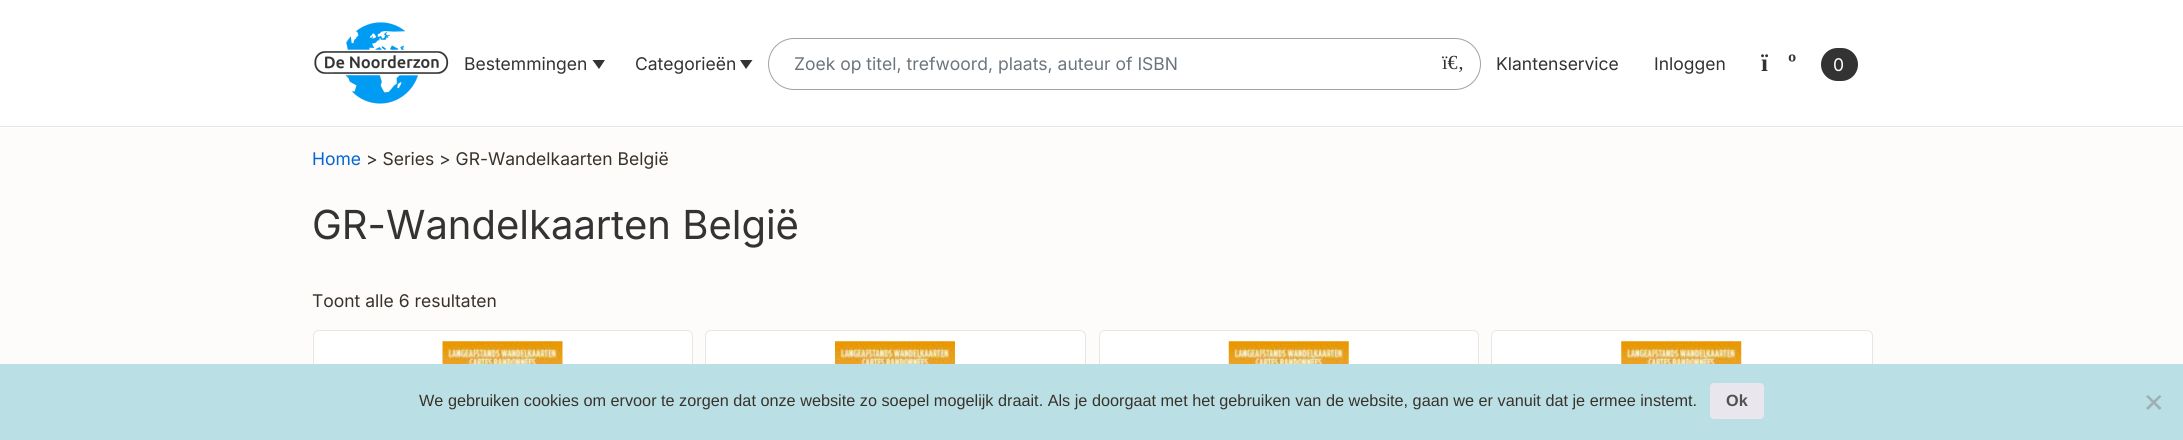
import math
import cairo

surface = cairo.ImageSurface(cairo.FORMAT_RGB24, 2183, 440)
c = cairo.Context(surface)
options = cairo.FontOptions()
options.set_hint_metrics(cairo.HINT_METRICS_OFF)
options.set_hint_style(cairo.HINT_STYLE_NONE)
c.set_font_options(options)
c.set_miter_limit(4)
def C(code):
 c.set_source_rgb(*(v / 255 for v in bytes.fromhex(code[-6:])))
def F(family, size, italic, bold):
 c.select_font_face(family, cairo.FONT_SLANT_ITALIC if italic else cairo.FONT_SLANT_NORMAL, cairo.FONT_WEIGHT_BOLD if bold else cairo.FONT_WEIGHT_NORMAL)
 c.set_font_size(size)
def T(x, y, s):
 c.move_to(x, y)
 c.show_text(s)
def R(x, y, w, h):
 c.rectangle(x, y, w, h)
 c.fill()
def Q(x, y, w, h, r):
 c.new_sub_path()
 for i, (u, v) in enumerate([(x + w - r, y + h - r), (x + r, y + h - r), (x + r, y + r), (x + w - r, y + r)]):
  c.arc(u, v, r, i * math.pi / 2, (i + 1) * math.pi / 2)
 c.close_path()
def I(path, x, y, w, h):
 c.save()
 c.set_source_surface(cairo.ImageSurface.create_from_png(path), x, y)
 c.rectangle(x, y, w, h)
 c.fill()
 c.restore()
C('fefbfb')
c.paint()
C('ffffff')
R(0,0,2183,128)
C('e6e6e6')
R(0,126,2183,1)
I('1.png',314,22,135,82)
F('Inter',17.5,0,0)
C('333333')
T(464,70,'Bestemmingen')
c.new_path()
c.move_to(592.5,60)
c.line_to(605,60)
c.line_to(599,69)
c.close_path()
c.fill()
T(635,70,'Categorieën')
c.new_path()
c.move_to(740,60)
c.line_to(752.5,60)
c.line_to(746,69)
c.close_path()
c.fill()
Q(768.5,38.5,712,51,25.5)
C('a2a2a2')
c.set_line_width(1)
c.stroke()
C('6c757d')
T(794,70,'Zoek op titel, trefwoord, plaats, auteur of ISBN')
F('Liberation Serif',20,0,0)
C('333333')
T(1442,69,'ï€‚')
F('Inter',17.5,0,0)
T(1496,70,'Klantenservice')
T(1654,70,'Inloggen')
F('Liberation Serif',25,0,1)
T(1761,71,'ï')
T(1788,71,'º')
Q(1821,48,37,33,16.5)
c.fill()
F('Inter',17.5,0,0)
C('ffffff')
T(1833,71,'0')
C('0366d6')
T(312,165,'Home')
C('39322a')
T(366,165,'> Series > GR-Wandelkaarten België')
F('Inter',40,0,0)
C('333333')
T(312,239,'GR-Wandelkaarten België')
F('Inter',17.5,0,0)
C('39322a')
T(312,307,'Toont alle 6 resultaten')
C('ffffff')
Q(313.5,330.5,379,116,5.5)
c.fill_preserve()
C('e6e6e6')
c.stroke()
I('2.png',442,341,121,23)
C('ffffff')
Q(705.5,330.5,380,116,5.5)
c.fill_preserve()
C('e6e6e6')
c.stroke()
I('3.png',835,341,120,23)
C('ffffff')
Q(1099.5,330.5,379,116,5.5)
c.fill_preserve()
C('e6e6e6')
c.stroke()
I('4.png',1228,341,121,23)
C('ffffff')
Q(1491.5,330.5,381,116,5.5)
c.fill_preserve()
C('e6e6e6')
c.stroke()
I('5.png',1621,341,121,23)
C('bae0e6')
R(0,364,2183,76)
F('Liberation Sans',16.25,0,0)
C('39322a')
T(419,406,'We gebruiken cookies om ervoor te zorgen dat onze website zo soepel mogelijk draait. Als je doorgaat met het gebruiken van de website, gaan we er vanuit dat je ermee instemt.')
C('e9e6ed')
Q(1710,383,54,36,4)
c.fill()
F('Liberation Sans',16.25,0,1)
C('515151')
T(1726,406,'Ok')
C('9db0b3')
c.new_path()
c.move_to(2159.5,395)
c.line_to(2161.5,396.5)
c.line_to(2148,410)
c.line_to(2146,408)
c.close_path()
c.fill()
c.new_path()
c.move_to(2146,396.5)
c.line_to(2148,395)
c.line_to(2161.5,408)
c.line_to(2159.5,410)
c.close_path()
c.fill()
surface.write_to_png('o.png')
